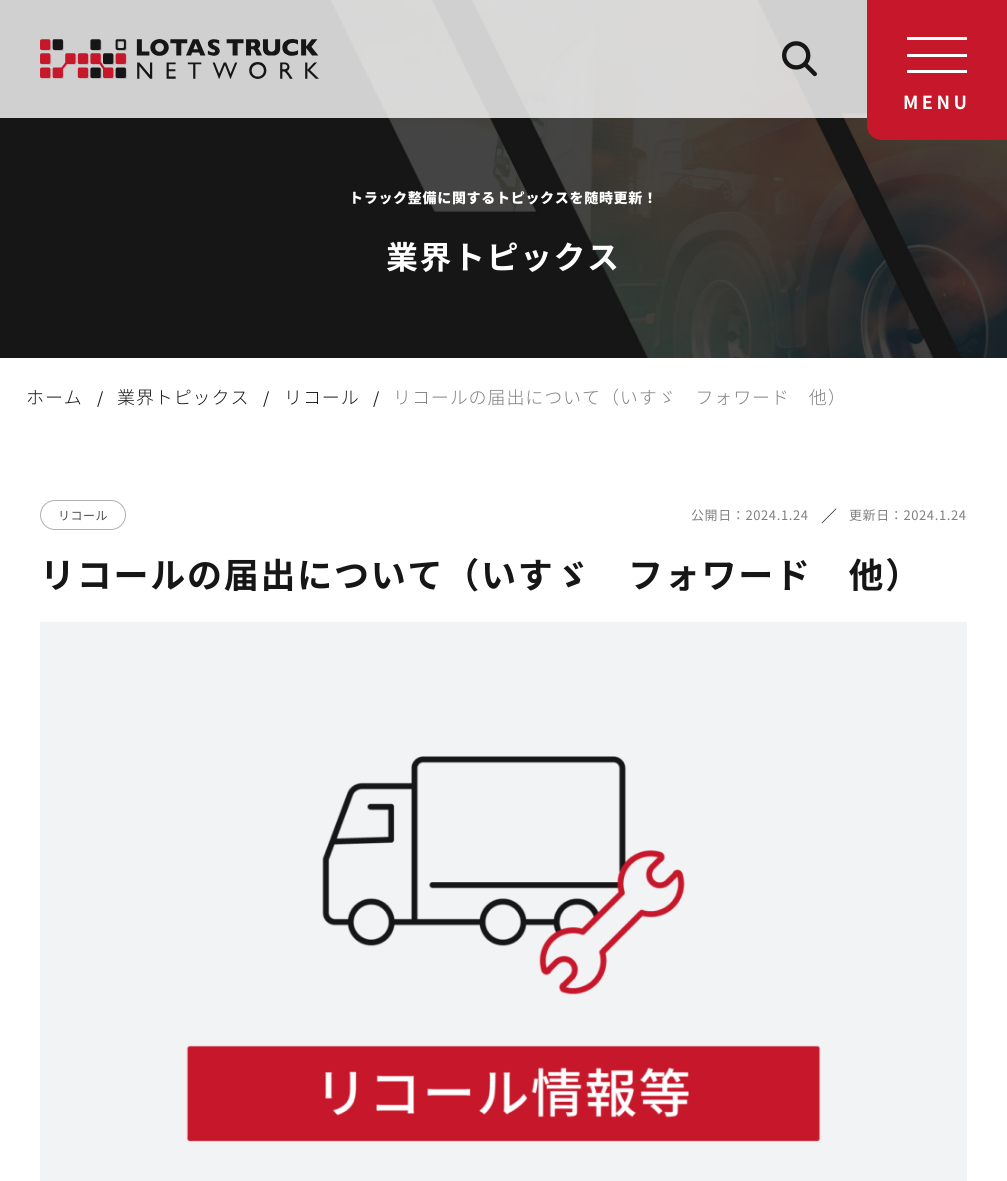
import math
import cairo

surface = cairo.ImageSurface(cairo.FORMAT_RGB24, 1007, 1181)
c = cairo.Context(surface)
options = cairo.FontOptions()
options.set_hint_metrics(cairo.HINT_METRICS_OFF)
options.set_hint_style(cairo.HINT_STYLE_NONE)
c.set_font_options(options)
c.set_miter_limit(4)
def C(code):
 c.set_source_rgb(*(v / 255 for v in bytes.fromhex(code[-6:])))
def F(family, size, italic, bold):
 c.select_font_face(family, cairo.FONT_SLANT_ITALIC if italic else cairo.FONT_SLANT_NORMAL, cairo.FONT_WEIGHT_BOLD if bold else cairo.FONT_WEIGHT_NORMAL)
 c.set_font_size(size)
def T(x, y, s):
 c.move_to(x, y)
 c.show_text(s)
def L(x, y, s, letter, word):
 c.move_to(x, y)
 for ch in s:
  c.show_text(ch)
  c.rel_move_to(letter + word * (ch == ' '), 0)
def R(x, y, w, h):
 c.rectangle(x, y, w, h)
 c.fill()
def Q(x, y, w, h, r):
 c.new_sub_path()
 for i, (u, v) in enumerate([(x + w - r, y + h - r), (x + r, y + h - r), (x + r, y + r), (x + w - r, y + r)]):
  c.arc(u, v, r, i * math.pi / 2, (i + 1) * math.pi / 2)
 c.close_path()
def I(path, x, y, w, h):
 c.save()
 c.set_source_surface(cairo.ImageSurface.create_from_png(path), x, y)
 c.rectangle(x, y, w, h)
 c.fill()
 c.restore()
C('ffffff')
c.paint()
I('3.png',0,0,1007,358)
c.set_source_rgba(1,1,1,0.8)
R(0,0,867,118)
I('1.png',40,39,279,40)
I('2.png',782,41,35,36)
C('c7172b')
c.new_path()
c.move_to(867,0)
c.line_to(1007,0)
c.line_to(1007,140)
c.line_to(882,140)
c.curve_to(873.5,140,867,133.5,867,125)
c.close_path()
c.fill()
C('ffffff')
R(907,37,60,3)
R(907,54,60,3)
R(907,70,60,3)
F('Noto Sans JP',18,0,1)
L(903,109,'MENU',3.5,0)
F('Noto Sans JP Black',14,0,0)
L(349,203,'トラック整備に関するトピックスを随時更新！',.7,0)
F('Noto Sans JP',32,0,1)
L(386,269,'業界トピックス',1.5,0)
F('Noto Sans JP Light',18,0,0)
C('161616')
L(26,404,'ホーム',.9,0)
F('Noto Sans JP',16,0,0)
T(97,404,'/')
F('Noto Sans JP Light',18,0,0)
L(117,404,'業界トピックス',.9,0)
F('Noto Sans JP',16,0,0)
T(263,404,'/')
F('Noto Sans JP Light',18,0,0)
L(284,404,'リコール',.9,0)
F('Noto Sans JP',16,0,0)
T(373,404,'/')
F('Noto Sans JP Light',18,0,0)
C('808080')
L(393,404,'リコールの届出について（いすゞ　フォワード　他）',.9,0)
Q(40.5,500.5,85,29,14.5)
C('b1b1b1')
c.set_line_width(1)
c.stroke()
F('Noto Sans JP',12,0,0)
C('4d4d4d')
L(58,520,'リコール',.5,0)
F('Noto Sans JP',13,0,0)
C('808080')
L(691,520,'公開日：2024.1.24',.6,0)
F('Noto Sans JP',16,0,0)
C('161616')
T(821,522,'／')
F('Noto Sans JP',13,0,0)
C('808080')
L(849,520,'更新日：2024.1.24',.6,0)
F('Noto Sans JP',35,0,1)
C('161616')
L(40,588,'リコールの届出について（いすゞ　フォワード　他）',1.75,0)
I('4.png',40,622,927,559)
surface.write_to_png('o.png')
